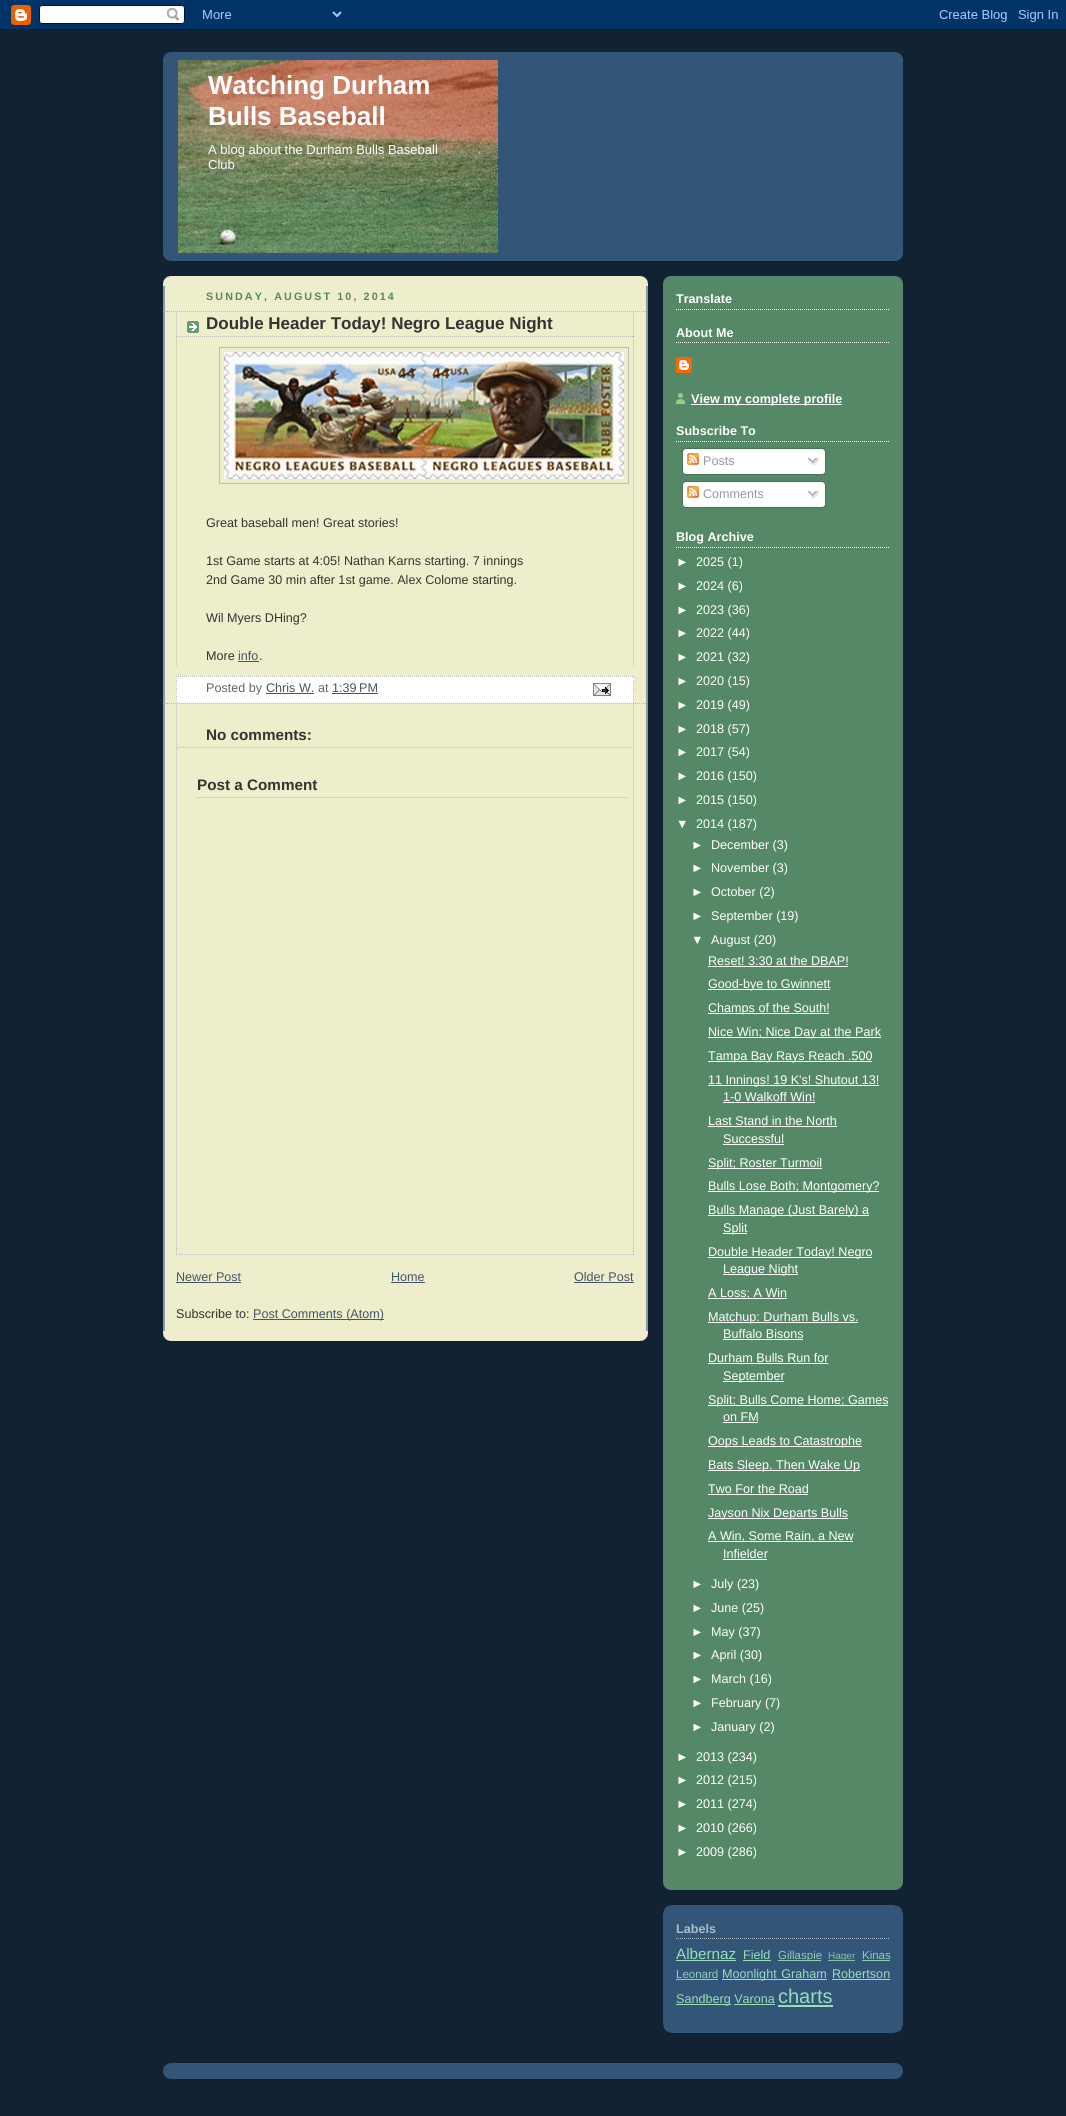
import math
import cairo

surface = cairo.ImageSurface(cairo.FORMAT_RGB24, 1066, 2116)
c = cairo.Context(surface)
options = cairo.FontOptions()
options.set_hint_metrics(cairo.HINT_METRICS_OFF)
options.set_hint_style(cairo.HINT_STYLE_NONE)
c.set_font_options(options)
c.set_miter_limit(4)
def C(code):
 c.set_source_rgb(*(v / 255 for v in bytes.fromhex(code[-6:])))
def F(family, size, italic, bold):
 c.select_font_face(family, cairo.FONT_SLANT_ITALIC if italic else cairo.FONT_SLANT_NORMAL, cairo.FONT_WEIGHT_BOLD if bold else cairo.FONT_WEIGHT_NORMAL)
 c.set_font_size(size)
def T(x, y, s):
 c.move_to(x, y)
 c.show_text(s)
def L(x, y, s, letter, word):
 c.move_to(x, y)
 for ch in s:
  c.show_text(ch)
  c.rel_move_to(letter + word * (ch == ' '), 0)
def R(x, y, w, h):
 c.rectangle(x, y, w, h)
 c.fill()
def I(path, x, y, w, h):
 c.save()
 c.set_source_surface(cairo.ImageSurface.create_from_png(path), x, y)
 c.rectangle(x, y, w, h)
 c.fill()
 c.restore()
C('112233')
c.paint()
I('1.png',0,0,1066,30)
C('335577')
R(163,52,740,209)
I('2.png',163,52,740,7)
I('3.png',163,254,740,7)
I('4.png',178,60,320,193)
F('Liberation Sans',26,0,1)
C('ffffff')
T(208,94,'Watching Durham')
T(208,125,'Bulls Baseball')
F('Liberation Sans',13,0,0)
T(208,154,'A blog about the Durham Bulls Baseball')
T(208,169,'Club')
C('eeeecc')
R(163,276,485,1065)
I('5.png',163,1333,485,8)
I('6.png',163,276,485,8)
I('7.png',163,286,485,1045)
F('Liberation Sans',10.75,0,1)
C('558866')
L(206,300,'SUNDAY, AUGUST 10, 2014',2.1,0)
c.new_path()
c.move_to(163,311.5)
c.line_to(647,311.5)
C('bbbbbb')
c.set_line_width(1)
c.set_dash([1,1])
c.stroke()
c.new_path()
c.move_to(163,703.5)
c.line_to(647,703.5)
c.stroke()
I('8.png',187,321,12,12)
c.new_path()
c.move_to(633.5,312)
c.line_to(633.5,337)
c.stroke()
c.new_path()
c.move_to(176,336.5)
c.line_to(634,336.5)
c.stroke()
c.new_path()
c.move_to(176.5,312)
c.line_to(176.5,337)
c.stroke()
F('Liberation Sans',17,0,1)
C('333333')
T(206,329,'Double Header Today! Negro League Night')
c.new_path()
c.move_to(633.5,337)
c.line_to(633.5,666)
C('bbbbbb')
c.stroke()
c.new_path()
c.move_to(176.5,337)
c.line_to(176.5,666)
c.stroke()
c.rectangle(219.5,347.5,409,136)
c.set_dash([])
c.stroke()
I('9.png',224,352,400,127)
F('Liberation Sans',12.6,0,0)
C('333333')
T(206,527,'Great baseball men! Great stories!')
T(206,565,'1st Game starts at 4:05! Nathan Karns starting. 7 innings')
T(206,584,'2nd Game 30 min after 1st game. Alex Colome starting.')
T(206,622,'Wil Myers DHing?')
T(206,660,'More')
C('445566')
T(238,660,'info')
R(238,661,21,1)
C('333333')
T(259,660,'.')
C('ffffff')
R(176,676,458,27)
c.new_path()
c.move_to(176,676.5)
c.line_to(634,676.5)
C('bbbbbb')
c.set_dash([1,1])
c.stroke()
c.new_path()
c.move_to(633.5,676)
c.line_to(633.5,703)
c.stroke()
c.new_path()
c.move_to(176.5,676)
c.line_to(176.5,703)
c.stroke()
C('666666')
T(206,692,'Posted by')
C('445566')
T(266,692,'Chris W.')
R(266,693,48,1)
C('666666')
T(318,692,'at')
C('445566')
T(332,692,'1:39 PM')
R(332,693,46,1)
I('10.png',593,683,18,13)
c.new_path()
c.move_to(633.5,704)
c.line_to(633.5,1255)
C('bbbbbb')
c.stroke()
c.new_path()
c.move_to(176,1254.5)
c.line_to(634,1254.5)
c.stroke()
c.new_path()
c.move_to(176.5,704)
c.line_to(176.5,1255)
c.stroke()
c.new_path()
c.move_to(177,747.5)
c.line_to(633,747.5)
c.stroke()
F('Liberation Sans',15.25,0,1)
C('333333')
T(206,740,'No comments:')
c.new_path()
c.move_to(197,797.5)
c.line_to(628,797.5)
C('bbbbbb')
c.stroke()
C('333333')
T(197,790,'Post a Comment')
F('Liberation Sans',12.6,0,0)
C('445566')
T(176,1281,'Newer Post')
R(176,1282,65,1)
T(391,1281,'Home')
R(391,1282,34,1)
T(574,1281,'Older Post')
R(574,1282,60,1)
C('333333')
T(176,1318,'Subscribe to:')
C('445566')
R(253,1319,131,1)
T(253,1318,'Post Comments (Atom)')
C('558866')
R(663,276,240,1614)
I('11.png',663,1882,240,8)
I('12.png',663,276,240,8)
c.new_path()
c.move_to(676,309.5)
c.line_to(890,309.5)
C('ffffff')
c.stroke()
F('Liberation Sans',12.6,0,1)
T(676,303,'Translate')
c.new_path()
c.move_to(676,342.5)
c.line_to(890,342.5)
c.stroke()
T(676,337,'About Me')
I('13.png',676,357,16,16)
I('14.png',676,393,9,11)
R(691,404,151,1)
T(691,403,'View my complete profile')
c.new_path()
c.move_to(676,441.5)
c.line_to(890,441.5)
c.stroke()
T(676,435,'Subscribe To')
I('15.png',682,448,144,24)
I('16.png',687,453,12,12)
F('Liberation Sans',12.6,0,0)
C('999999')
T(703,465,'Posts')
I('17.png',807,457,13,9)
I('18.png',682,472,144,3)
I('15.png',682,481,144,24)
I('16.png',687,486,12,12)
T(703,498,'Comments')
I('17.png',807,490,13,9)
I('18.png',682,505,144,3)
c.new_path()
c.move_to(676,547.5)
c.line_to(890,547.5)
C('ffffff')
c.stroke()
F('Liberation Sans',12.6,0,1)
T(676,541,'Blog Archive')
F('Liberation Sans',12.6,0,0)
T(676,566,'►')
T(696,566,'2025 (1)')
T(676,590,'►')
T(696,590,'2024 (6)')
T(676,614,'►')
T(696,614,'2023 (36)')
T(676,637,'►')
T(696,637,'2022 (44)')
T(676,661,'►')
T(696,661,'2021 (32)')
T(676,685,'►')
T(696,685,'2020 (15)')
T(676,709,'►')
T(696,709,'2019 (49)')
T(676,733,'►')
T(696,733,'2018 (57)')
T(676,756,'►')
T(696,756,'2017 (54)')
T(676,780,'►')
T(696,780,'2016 (150)')
T(676,804,'►')
T(696,804,'2015 (150)')
T(676,828,'▼')
T(696,828,'2014 (187)')
T(691,849,'►')
T(711,849,'December (3)')
T(691,872,'►')
T(711,872,'November (3)')
T(691,896,'►')
T(711,896,'October (2)')
T(691,920,'►')
T(711,920,'September (19)')
T(691,944,'▼')
T(711,944,'August (20)')
T(708,965,'Reset! 3:30 at the DBAP!')
R(708,966,140,1)
R(708,989,122,1)
T(708,988,'Good-bye to Gwinnett')
R(708,1013,121,1)
T(708,1012,'Champs of the South!')
R(708,1037,173,1)
T(708,1036,'Nice Win; Nice Day at the Park')
R(708,1061,164,1)
T(708,1060,'Tampa Bay Rays Reach .500')
R(708,1085,171,1)
T(708,1084,'11 Innings! 19 K\'s! Shutout 13!')
T(723,1101,'1-0 Walkoff Win!')
R(723,1102,92,1)
T(708,1125,'Last Stand in the North')
R(708,1126,129,1)
T(723,1143,'Successful')
R(723,1144,61,1)
R(708,1168,114,1)
T(708,1167,'Split; Roster Turmoil')
R(708,1191,171,1)
T(708,1190,'Bulls Lose Both; Montgomery?')
R(708,1215,161,1)
T(708,1214,'Bulls Manage (Just Barely) a')
R(723,1233,24,1)
T(723,1232,'Split')
R(708,1257,164,1)
T(708,1256,'Double Header Today! Negro')
R(723,1274,75,1)
T(723,1273,'League Night')
R(708,1298,79,1)
T(708,1297,'A Loss; A Win')
R(708,1322,150,1)
T(708,1321,'Matchup: Durham Bulls vs.')
T(723,1338,'Buffalo Bisons')
R(723,1339,80,1)
T(708,1362,'Durham Bulls Run for')
R(708,1363,120,1)
R(723,1381,61,1)
T(723,1380,'September')
R(708,1405,180,1)
T(708,1404,'Split; Bulls Come Home; Games')
T(723,1421,'on FM')
R(723,1422,35,1)
R(708,1446,154,1)
T(708,1445,'Oops Leads to Catastrophe')
R(708,1470,152,1)
T(708,1469,'Bats Sleep, Then Wake Up')
T(708,1493,'Two For the Road')
R(708,1494,100,1)
R(708,1518,140,1)
T(708,1517,'Jayson Nix Departs Bulls')
R(708,1541,145,1)
T(708,1540,'A Win, Some Rain, a New')
T(723,1558,'Infielder')
R(723,1559,44,1)
T(691,1588,'►')
T(711,1588,'July (23)')
T(691,1612,'►')
T(711,1612,'June (25)')
T(691,1636,'►')
T(711,1636,'May (37)')
T(691,1659,'►')
T(711,1659,'April (30)')
T(691,1683,'►')
T(711,1683,'March (16)')
T(691,1707,'►')
T(711,1707,'February (7)')
T(691,1731,'►')
T(711,1731,'January (2)')
T(676,1761,'►')
T(696,1761,'2013 (234)')
T(676,1784,'►')
T(696,1784,'2012 (215)')
T(676,1808,'►')
T(696,1808,'2011 (274)')
T(676,1832,'►')
T(696,1832,'2010 (266)')
T(676,1856,'►')
T(696,1856,'2009 (286)')
C('335577')
R(663,1905,240,128)
I('19.png',663,1905,240,8)
I('20.png',663,2025,240,8)
c.new_path()
c.move_to(676,1938.5)
c.line_to(890,1938.5)
C('aabbcc')
c.stroke()
F('Liberation Sans',12.6,0,1)
T(676,1933,'Labels')
F('Liberation Sans',15.25,0,0)
C('99ddbb')
T(676,1959,'Albernaz')
R(676,1960,60,1)
F('Liberation Sans',12.6,0,0)
T(743,1959,'Field')
R(743,1960,28,1)
C('8fcfb4')
R(778,1960,43,1)
F('Liberation Sans',11.5,0,0)
T(778,1959,'Gillaspie')
C('85c2ad')
R(828,1960,27,1)
F('Liberation Sans',10,0,0)
T(828,1959,'Hager')
F('Liberation Sans',11.5,0,0)
C('8fcfb4')
T(862,1959,'Kinas')
R(862,1960,28,1)
T(676,1978,'Leonard')
R(676,1979,42,1)
C('99ddbb')
R(722,1979,105,1)
F('Liberation Sans',12.6,0,0)
L(722,1978,'Moonlight Graham',0,1)
T(832,1978,'Robertson')
R(832,1979,58,1)
R(676,2004,55,1)
T(676,2003,'Sandberg Varona')
F('Liberation Sans',20,0,0)
T(778,2003,'charts')
R(778,2005,55,2)
R(734,2004,41,1)
C('335577')
R(163,2063,740,16)
I('2.png',163,2063,740,7)
I('3.png',163,2072,740,7)
surface.write_to_png('o.png')
